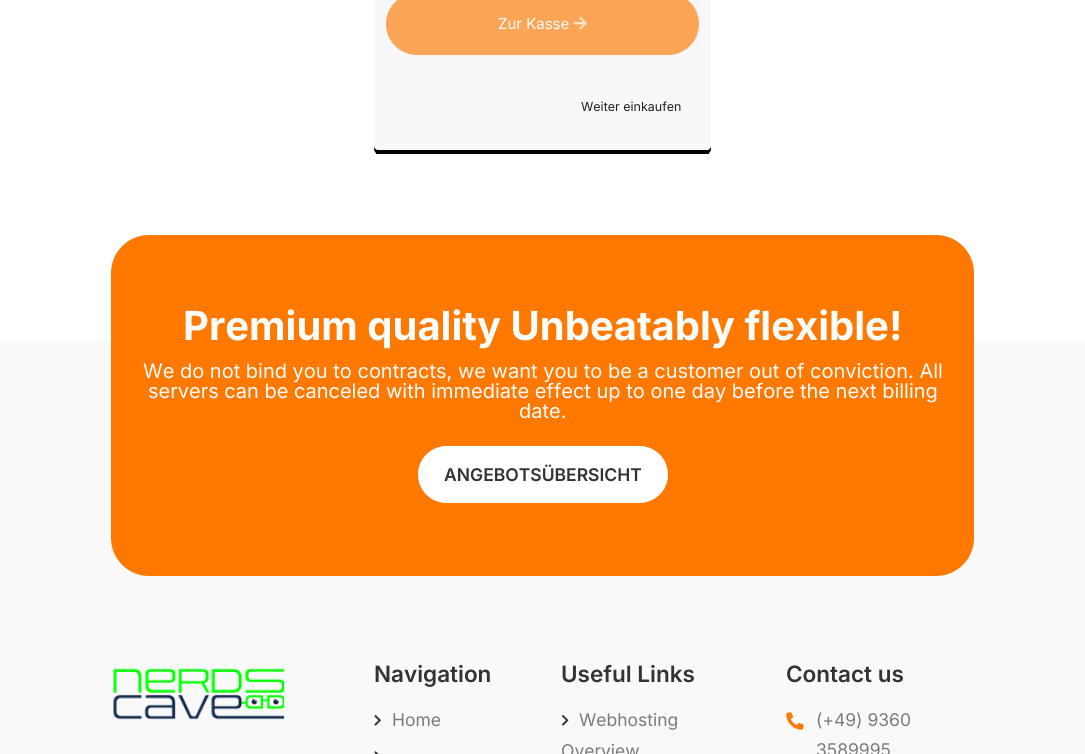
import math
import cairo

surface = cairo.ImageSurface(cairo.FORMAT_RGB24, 1085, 754)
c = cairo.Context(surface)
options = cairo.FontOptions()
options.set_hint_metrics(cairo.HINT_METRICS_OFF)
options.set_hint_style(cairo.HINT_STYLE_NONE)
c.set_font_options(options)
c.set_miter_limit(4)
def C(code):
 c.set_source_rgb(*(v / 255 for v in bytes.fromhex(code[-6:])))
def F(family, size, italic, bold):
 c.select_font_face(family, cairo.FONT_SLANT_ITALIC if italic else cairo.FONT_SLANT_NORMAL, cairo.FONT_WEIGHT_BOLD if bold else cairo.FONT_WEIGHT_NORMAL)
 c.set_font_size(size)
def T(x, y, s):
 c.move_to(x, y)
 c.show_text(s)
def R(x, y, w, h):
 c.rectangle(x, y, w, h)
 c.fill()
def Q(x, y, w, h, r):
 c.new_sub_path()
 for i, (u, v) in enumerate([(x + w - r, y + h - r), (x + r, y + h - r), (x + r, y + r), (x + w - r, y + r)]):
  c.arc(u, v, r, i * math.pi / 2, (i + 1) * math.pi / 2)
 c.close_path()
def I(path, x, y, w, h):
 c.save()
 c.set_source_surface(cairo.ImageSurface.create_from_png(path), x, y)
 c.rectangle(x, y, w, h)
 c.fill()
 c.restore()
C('ffffff')
c.paint()
C('000000')
Q(374,-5,337,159,5)
c.fill()
R(376,153,333,1)
C('f8f8f8')
Q(374,-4,337,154,4)
c.fill()
C('fda557')
Q(386.5,-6.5,312,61,30.5)
c.fill_preserve()
c.set_line_width(1)
c.stroke()
F('Inter',15,0,0)
C('fdfdfd')
T(498,29,'Zur Kasse')
I('1.png',573,16,14,14)
F('Inter',12.5,0,0)
C('222222')
T(581,111,'Weiter einkaufen')
C('f9f9f9')
R(0,341,1085,413)
C('ff7800')
Q(111,235,863,341,38)
c.fill()
F('Inter',40,0,1)
C('fdfdfd')
T(183,340,'Premium quality Unbeatably flexible!')
F('Inter',20,0,0)
T(143,378,'We do not bind you to contracts, we want you to be a customer out of conviction. All')
T(148,398,'servers can be canceled with immediate effect up to one day before the next billing')
T(519,418,'date.')
C('ffffff')
Q(418.5,446.5,249,56,28)
c.fill_preserve()
c.stroke()
F('Inter SemiBold',17.5,0,0)
C('333333')
T(444,481,'ANGEBOTSÜBERSICHT')
I('2.png',113,668,172,52)
F('Inter SemiBold',22.5,0,0)
T(374,682,'Navigation')
I('3.png',374,715,7,11)
F('Inter',17.5,0,0)
C('7c7c7c')
T(392,726,'Home')
I('4.png',374,751,5,3)
F('Inter SemiBold',22.5,0,0)
C('333333')
T(561,682,'Useful Links')
I('5.png',562,715,7,11)
F('Inter',17.5,0,0)
C('7c7c7c')
T(579,726,'Webhosting')
T(561,757,'Overview')
F('Inter SemiBold',22.5,0,0)
C('333333')
T(786,682,'Contact us')
I('6.png',786,712,18,18)
F('Inter',17.5,0,0)
C('7c7c7c')
T(816,726,'(+49) 9360')
T(816,756,'3589995')
surface.write_to_png('o.png')
